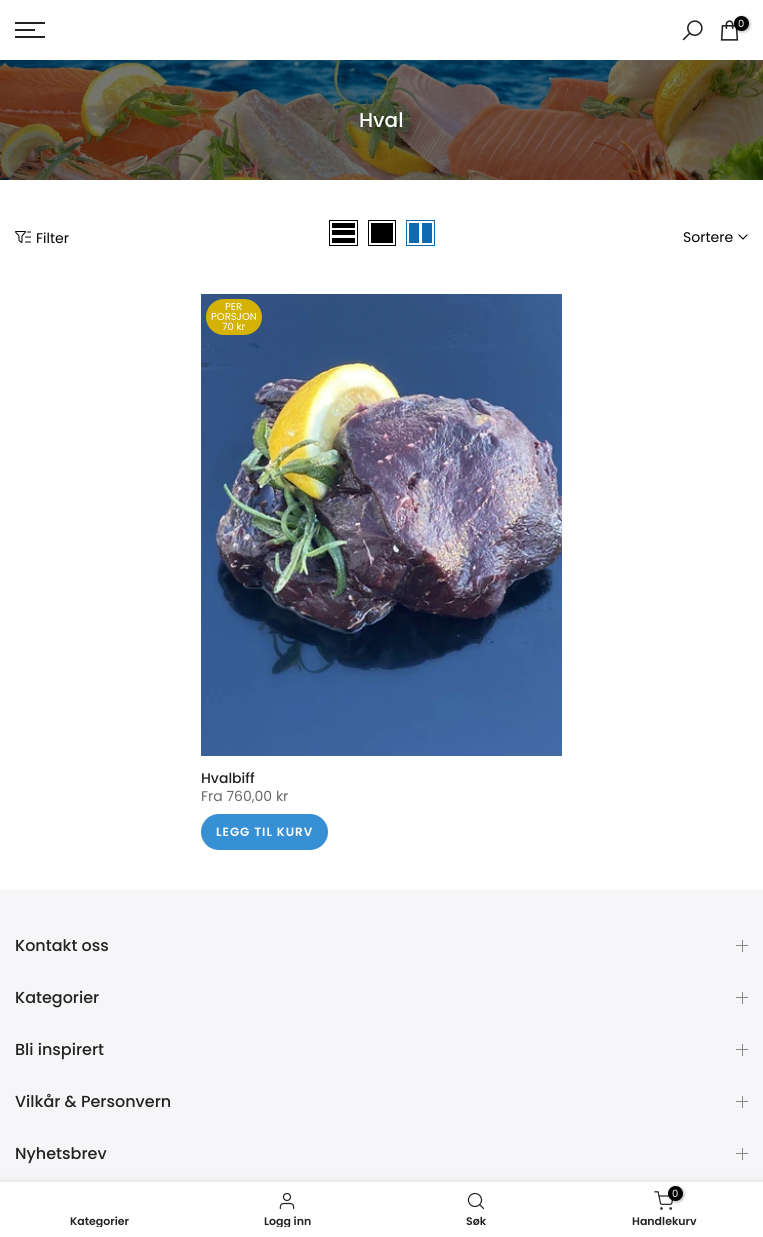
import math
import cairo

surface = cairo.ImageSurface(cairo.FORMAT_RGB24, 763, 1237)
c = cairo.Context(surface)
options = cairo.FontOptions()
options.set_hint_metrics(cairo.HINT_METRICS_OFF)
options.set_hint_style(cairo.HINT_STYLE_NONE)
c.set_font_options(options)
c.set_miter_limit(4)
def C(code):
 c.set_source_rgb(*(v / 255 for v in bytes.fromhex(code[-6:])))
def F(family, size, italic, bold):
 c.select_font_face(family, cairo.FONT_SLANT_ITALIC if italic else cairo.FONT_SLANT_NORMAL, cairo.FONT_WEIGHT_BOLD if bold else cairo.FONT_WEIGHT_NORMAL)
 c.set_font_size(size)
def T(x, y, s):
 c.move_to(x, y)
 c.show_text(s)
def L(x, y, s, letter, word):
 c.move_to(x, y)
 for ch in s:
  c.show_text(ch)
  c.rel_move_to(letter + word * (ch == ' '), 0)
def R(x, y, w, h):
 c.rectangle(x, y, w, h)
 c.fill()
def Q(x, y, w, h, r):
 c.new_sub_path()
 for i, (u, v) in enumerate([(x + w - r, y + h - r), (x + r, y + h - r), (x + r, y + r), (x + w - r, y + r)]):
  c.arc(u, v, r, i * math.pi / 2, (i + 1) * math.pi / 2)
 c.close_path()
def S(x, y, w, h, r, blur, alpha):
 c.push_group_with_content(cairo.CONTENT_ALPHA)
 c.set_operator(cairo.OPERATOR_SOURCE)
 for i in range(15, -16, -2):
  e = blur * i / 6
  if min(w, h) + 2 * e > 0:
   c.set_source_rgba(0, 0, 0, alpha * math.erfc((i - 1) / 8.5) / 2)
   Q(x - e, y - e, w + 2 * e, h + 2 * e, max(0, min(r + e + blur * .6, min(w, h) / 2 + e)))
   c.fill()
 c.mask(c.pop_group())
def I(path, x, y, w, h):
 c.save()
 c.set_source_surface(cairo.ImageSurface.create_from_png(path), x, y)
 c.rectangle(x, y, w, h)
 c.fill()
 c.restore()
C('ffffff')
c.paint()
C('222222')
R(15,22,30,2)
R(15,29,20,2)
R(15,36,30,2)
I('1.png',682,20,21,21)
I('2.png',720,20,19,21)
C('000000')
S(735,17,15,15,7.5,1.5,.3)
C('000000')
c.arc(741.5,23.5,7.5,0,2 * math.pi)
c.fill()
F('Poppins',10,0,0)
C('ffffff')
T(738,27,'0')
I('3.png',0,60,763,120)
F('Poppins Medium',20,0,0)
T(359,127,'Hval')
I('4.png',15,231,16,12)
F('Poppins',14,0,0)
C('000000')
T(36,243,'Filter')
c.rectangle(329.5,220.5,28,25)
c.set_line_width(1)
c.stroke()
R(332,238,23,5)
R(332,230,23,5)
R(332,223,23,5)
c.rectangle(368.5,220.5,27,25)
c.stroke()
R(371,223,22,20)
c.rectangle(406.5,220.5,28,25)
C('106ab0')
c.stroke()
R(422,223,10,20)
R(409,223,10,20)
C('000000')
T(683,242,'Sortere')
c.new_path()
c.move_to(747,235)
c.line_to(743,239)
c.line_to(739,235)
c.set_line_width(1.1)
c.set_line_cap(cairo.LINE_CAP_SQUARE)
c.stroke()
I('5.png',201,294,361,462)
C('d4b304')
Q(206,299,56,36,18)
c.fill()
F('Poppins',10,0,0)
C('ffffff')
T(225,310,'PER')
T(211,320,'PORSJON')
T(222,330,'70 kr')
F('Poppins Medium',14,0,0)
C('222222')
T(201,783,'Hvalbiff')
F('Poppins',14,0,0)
C('696969')
T(201,801,'Fra 760,00 kr')
C('3890d4')
Q(201,814,127,36,18)
c.fill()
F('Poppins SemiBold',12,0,0)
C('ffffff')
L(216,836,'LEGG TIL KURV',1,0)
C('f6f6f8')
R(0,890,763,292)
F('Poppins Medium',16,0,0)
C('222222')
T(15,951,'Kontakt oss')
C('878787')
R(742,940,1,12)
R(736,945,12,1)
C('222222')
T(15,1003,'Kategorier')
C('878787')
R(742,992,1,12)
R(736,997,12,1)
C('222222')
T(15,1055,'Bli inspirert')
C('878787')
R(742,1044,1,12)
R(736,1049,12,1)
C('222222')
T(15,1107,'Vilkår & Personvern')
C('878787')
R(742,1096,1,12)
R(736,1101,12,1)
C('222222')
T(15,1159,'Nyhetsbrev')
C('878787')
R(742,1148,1,12)
R(736,1153,12,1)
C('000000')
S(0,1182,763,55,0,4.5,.12)
C('ffffff')
R(0,1182,763,55)
c.save()
c.rectangle(15,1216,168,11)
c.clip()
F('Poppins SemiBold',11,0,0)
C('222222')
T(70,1225,'Kategorier')
c.restore()
I('6.png',279,1192,16,18)
c.save()
c.rectangle(203,1216,169,11)
c.clip()
F('Poppins SemiBold',11,0,0)
C('222222')
T(264,1225,'Logg inn')
c.restore()
c.new_path()
c.arc(475,1200,6.5,0,2 * math.pi)
C('222222')
c.set_line_width(1.2)
c.set_line_cap(cairo.LINE_CAP_BUTT)
c.stroke()
c.new_path()
c.move_to(483.5,1208.5)
c.line_to(480,1205)
c.set_line_cap(cairo.LINE_CAP_ROUND)
c.set_line_join(cairo.LINE_JOIN_ROUND)
c.stroke()
F('Poppins SemiBold',11,0,0)
T(466,1225,'Søk')
I('7.png',654,1191,19,19)
C('000000')
S(669,1187,15,15,7.5,1.5,.3)
C('000000')
c.arc(675.5,1193.5,7.5,0,2 * math.pi)
c.fill()
F('Poppins',10,0,0)
C('ffffff')
T(672,1197,'0')
F('Poppins SemiBold',11,0,0)
C('222222')
T(632,1225,'Handlekurv')
surface.write_to_png('o.png')
